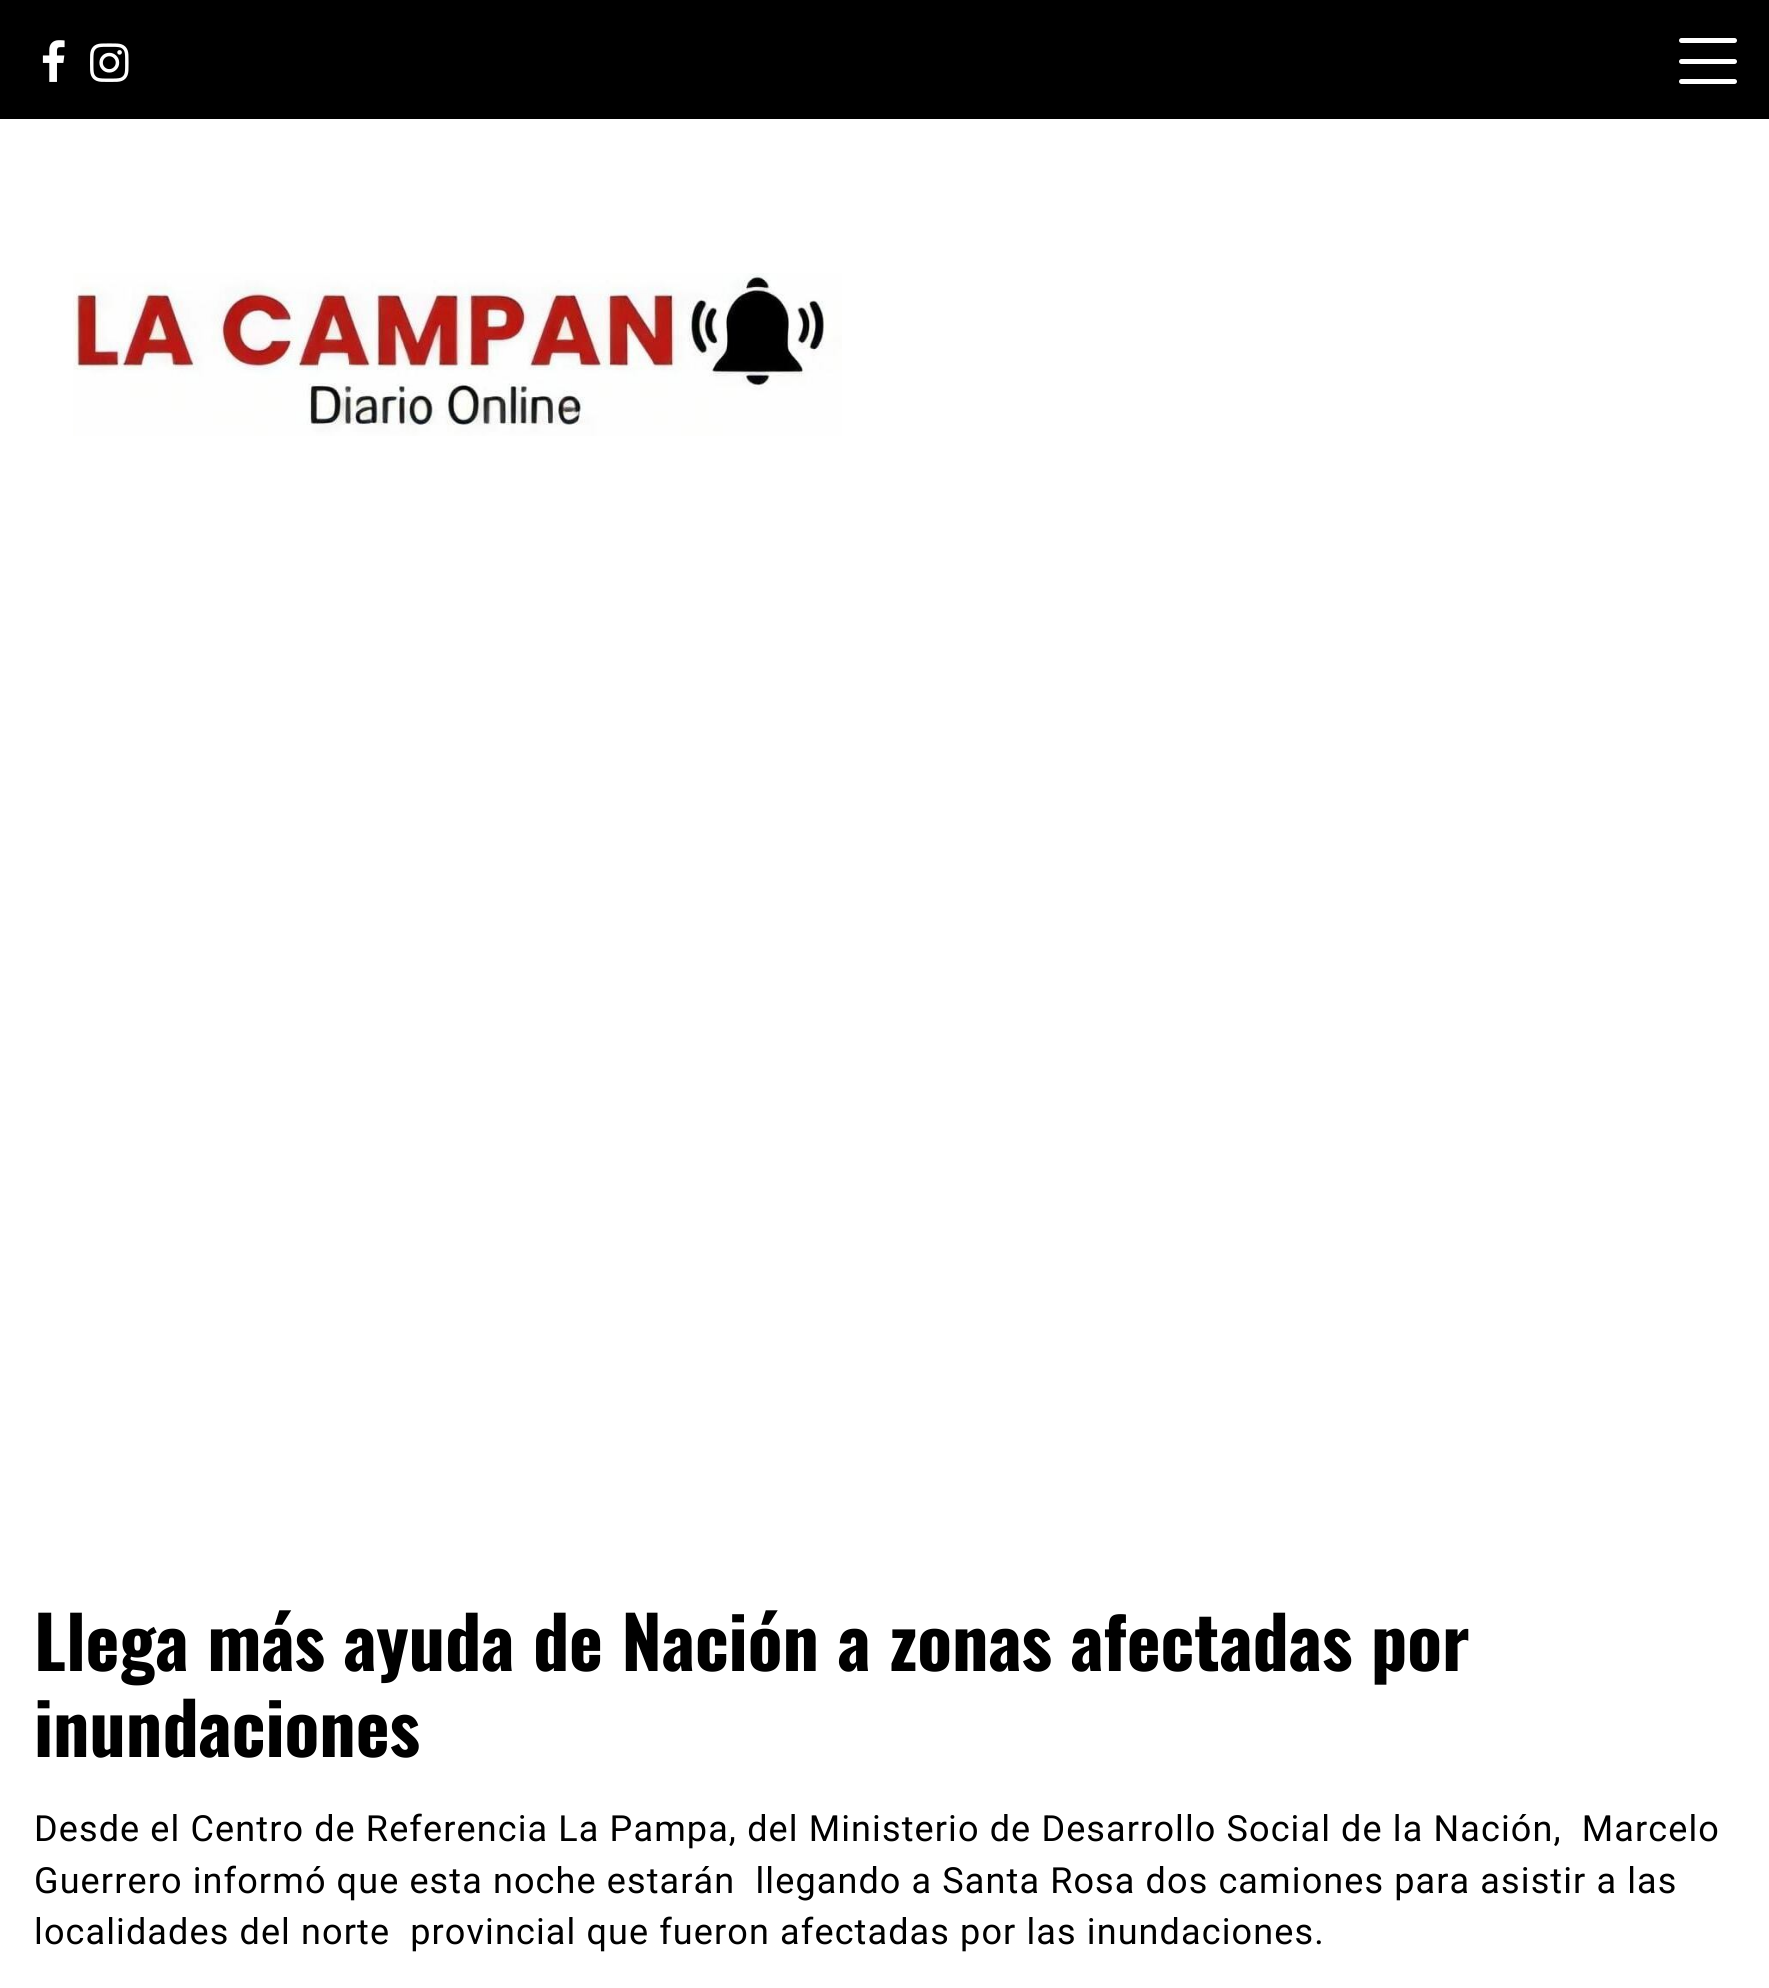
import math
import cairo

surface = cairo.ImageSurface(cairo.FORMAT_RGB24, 1769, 1988)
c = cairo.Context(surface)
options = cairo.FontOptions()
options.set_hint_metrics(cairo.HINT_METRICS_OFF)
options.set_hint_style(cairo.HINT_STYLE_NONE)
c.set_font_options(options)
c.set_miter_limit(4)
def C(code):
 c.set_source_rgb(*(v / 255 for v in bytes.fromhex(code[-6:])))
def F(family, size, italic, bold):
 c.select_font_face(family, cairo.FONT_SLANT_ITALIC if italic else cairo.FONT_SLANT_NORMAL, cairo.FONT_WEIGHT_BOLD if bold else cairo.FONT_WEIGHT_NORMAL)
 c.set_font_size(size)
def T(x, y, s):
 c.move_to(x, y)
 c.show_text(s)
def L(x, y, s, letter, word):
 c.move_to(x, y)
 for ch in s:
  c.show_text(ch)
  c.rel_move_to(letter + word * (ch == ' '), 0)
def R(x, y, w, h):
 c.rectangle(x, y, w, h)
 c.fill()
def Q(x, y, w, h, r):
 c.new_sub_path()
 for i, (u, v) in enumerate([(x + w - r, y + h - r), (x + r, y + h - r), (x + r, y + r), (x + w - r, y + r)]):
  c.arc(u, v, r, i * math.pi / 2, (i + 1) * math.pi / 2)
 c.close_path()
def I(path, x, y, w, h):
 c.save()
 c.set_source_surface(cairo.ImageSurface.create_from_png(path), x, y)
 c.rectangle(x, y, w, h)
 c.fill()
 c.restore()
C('ffffff')
c.paint()
C('000000')
R(0,0,1769,119)
I('1.png',42,40,23,42)
I('2.png',90,43,39,39)
C('ffffff')
Q(1679,59,58,5,2.5)
c.fill()
Q(1679,38,58,5,2.5)
c.fill()
Q(1679,79,58,5,2.5)
c.fill()
I('3.png',73,273,769,163)
F('Oswald',72,0,1)
C('000000')
T(34,1671,'Llega más ayuda de Nación a zonas afectadas por')
T(34,1757,'inundaciones')
F('Roboto',36,0,0)
L(34,1841,'Desde el Centro de Referencia La Pampa, del Ministerio de Desarrollo Social de la Nación,  Marcelo',1.12,0)
L(34,1893,'Guerrero informó que esta noche estarán  llegando a Santa Rosa dos camiones para asistir a las',1.12,0)
L(34,1944,'localidades del norte  provincial que fueron afectadas por las inundaciones.',1.12,0)
surface.write_to_png('o.png')
